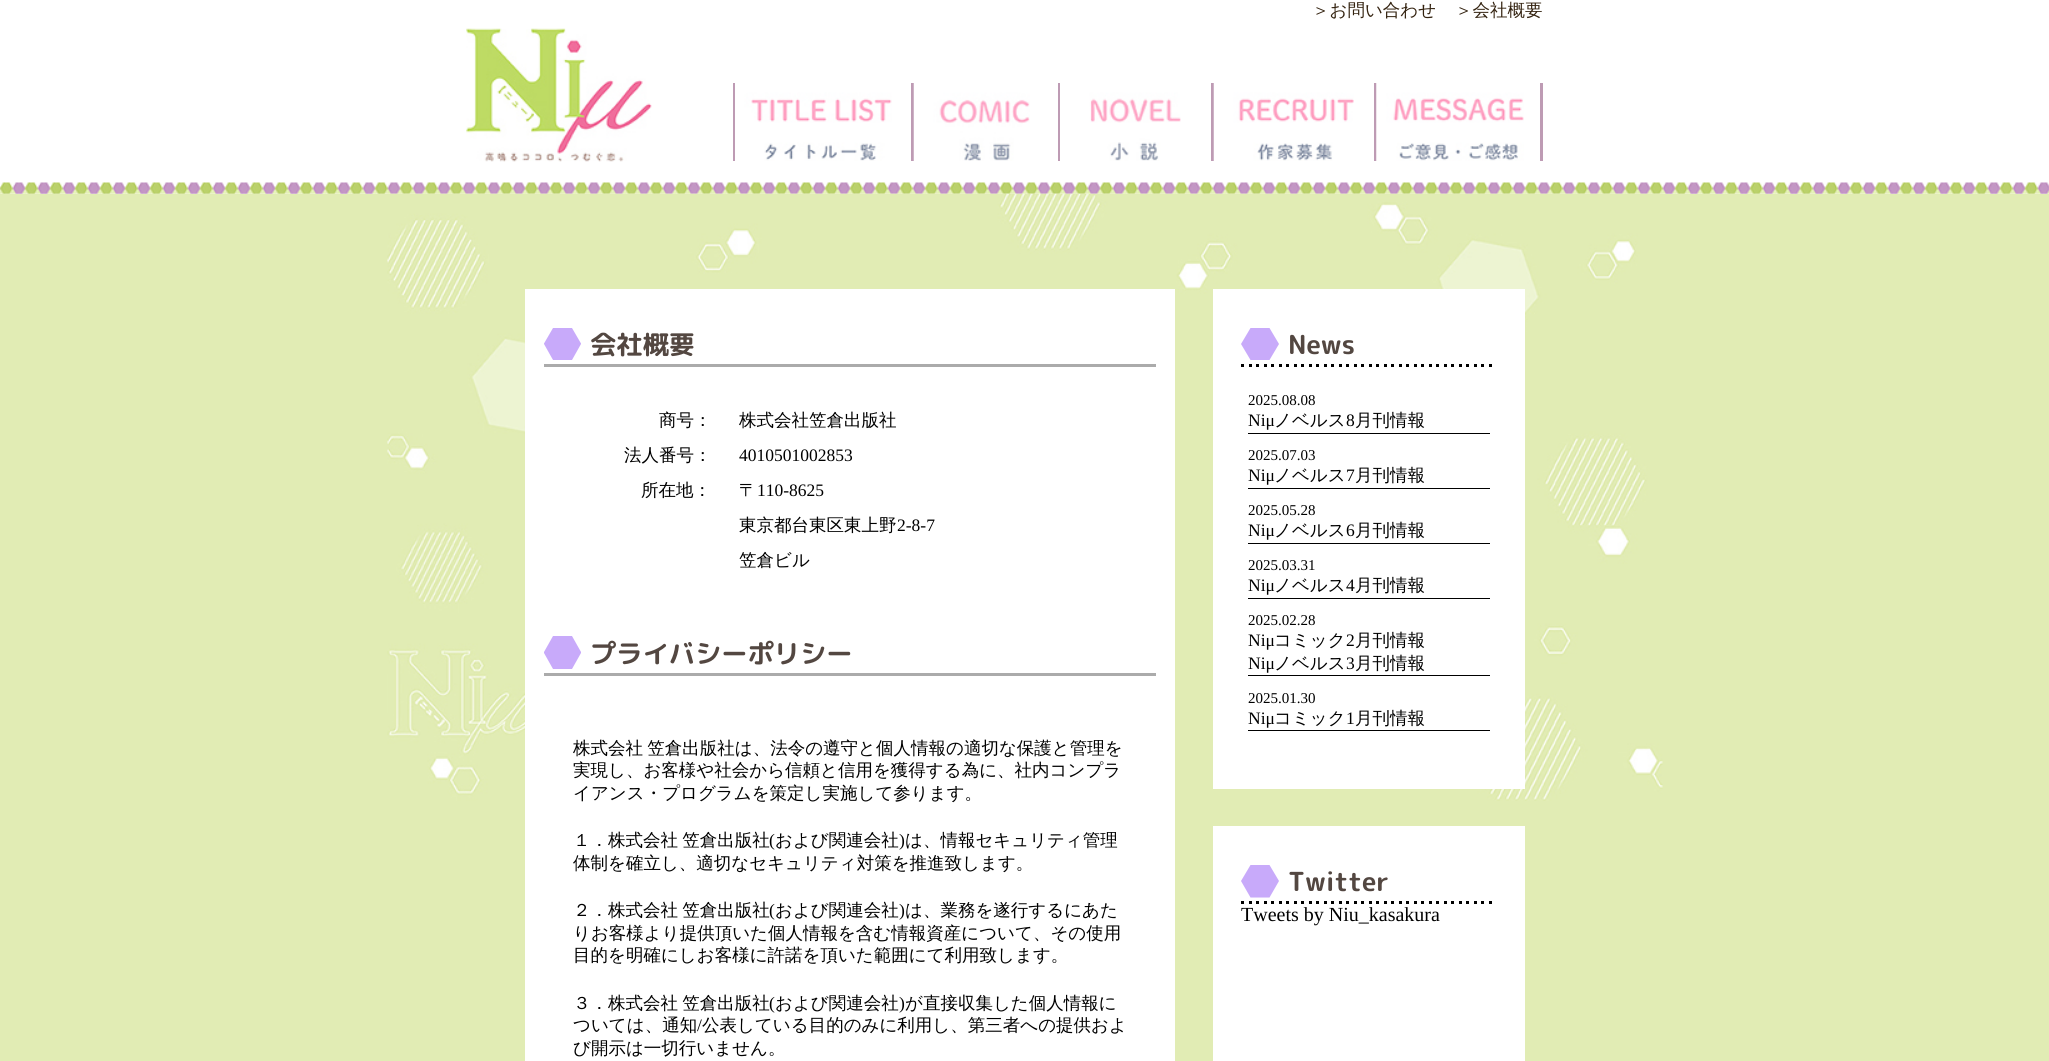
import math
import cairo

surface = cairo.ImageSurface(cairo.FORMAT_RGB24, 2049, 1061)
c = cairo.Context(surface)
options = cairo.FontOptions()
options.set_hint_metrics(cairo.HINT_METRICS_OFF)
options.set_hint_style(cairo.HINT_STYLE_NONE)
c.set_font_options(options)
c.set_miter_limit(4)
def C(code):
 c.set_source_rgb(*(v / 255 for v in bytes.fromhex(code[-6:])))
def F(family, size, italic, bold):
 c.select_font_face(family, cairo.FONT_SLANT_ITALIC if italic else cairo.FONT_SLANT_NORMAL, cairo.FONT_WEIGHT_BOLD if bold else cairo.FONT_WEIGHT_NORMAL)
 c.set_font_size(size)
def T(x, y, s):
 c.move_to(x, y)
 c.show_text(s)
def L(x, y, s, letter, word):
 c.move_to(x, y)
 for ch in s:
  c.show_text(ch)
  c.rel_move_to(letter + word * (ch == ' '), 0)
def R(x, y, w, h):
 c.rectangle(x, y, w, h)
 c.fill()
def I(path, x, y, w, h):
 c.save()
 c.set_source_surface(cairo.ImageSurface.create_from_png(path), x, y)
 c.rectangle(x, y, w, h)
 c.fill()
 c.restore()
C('ffffff')
c.paint()
F('WenQuanYi Zen Hei Medium',17.5,0,0)
C('33220f')
T(1312,16,'＞お問い合わせ')
T(1455,16,'＞会社概要')
C('be9bb4')
R(733,83,2,78)
I('1.png',735,83,157,78)
R(911,83,3,78)
I('2.png',913,83,117,78)
R(1058,83,2,78)
I('3.png',1060,83,121,78)
R(1211,83,3,78)
I('4.png',1213,83,141,78)
R(1540,83,3,78)
R(1374,83,3,78)
I('5.png',1376,83,148,78)
I('6.png',466,28,186,134)
I('7.png',0,182,2049,12)
C('e1ecb4')
R(0,194,2049,867)
I('8.png',387,193,1276,608)
C('ffffff')
R(525,289,650,772)
C('c8aafa')
c.new_path()
c.move_to(553,360)
c.line_to(572,360)
c.line_to(581,344)
c.line_to(581,343.5)
c.line_to(572,328)
c.line_to(553,328)
c.line_to(544,343.5)
c.line_to(544,344)
c.close_path()
c.fill()
F('Rounded Mplus 1c Bold',26.25,0,1)
C('534741')
T(590,354,'会社概要')
C('ababab')
R(544,364,612,3)
F('WenQuanYi Zen Hei Medium',17.5,0,0)
C('000000')
T(659,426,'商号：')
T(739,426,'株式会社笠倉出版社')
T(624,461,'法人番号：')
F('Liberation Serif',17.5,0,0)
T(739,461,'4010501002853')
F('WenQuanYi Zen Hei Medium',17.5,0,0)
T(641,496,'所在地：')
T(739,496,'〒')
F('Liberation Serif',17.5,0,0)
T(757,496,'110-8625')
F('WenQuanYi Zen Hei Medium',17.5,0,0)
T(739,531,'東京都台東区東上野')
F('Liberation Serif',17.5,0,0)
T(897,531,'2-8-7')
F('WenQuanYi Zen Hei Medium',17.5,0,0)
T(739,566,'笠倉ビル')
C('c8aafa')
c.new_path()
c.move_to(544,653)
c.line_to(544,652)
c.line_to(553,636)
c.line_to(572,636)
c.line_to(581,652)
c.line_to(581,653)
c.line_to(572,669)
c.line_to(553,669)
c.close_path()
c.fill()
F('Rounded Mplus 1c Bold',26.25,0,1)
C('534741')
T(590,663,'プライバシーポリシー')
C('ababab')
R(544,673,612,3)
F('WenQuanYi Zen Hei Medium',17.5,0,0)
C('000000')
L(573,754,'株式会社 笠倉出版社は、法令の遵守と個人情報の適切な保護と管理を',0,-1)
T(573,776,'実現し、お客様や社会から信頼と信用を獲得する為に、社内コンプラ')
T(573,799,'イアンス・プログラムを策定し実施して参ります。')
L(573,846,'１．株式会社 笠倉出版社',0,-1)
F('Liberation Serif',17.5,0,0)
T(769,846,'(')
F('WenQuanYi Zen Hei Medium',17.5,0,0)
T(775,846,'および関連会社')
F('Liberation Serif',17.5,0,0)
T(899,846,')')
F('WenQuanYi Zen Hei Medium',17.5,0,0)
T(905,846,'は、情報セキュリティ管理')
T(573,869,'体制を確立し、適切なセキュリティ対策を推進致します。')
L(573,916,'２．株式会社 笠倉出版社',0,-1)
F('Liberation Serif',17.5,0,0)
T(769,916,'(')
F('WenQuanYi Zen Hei Medium',17.5,0,0)
T(775,916,'および関連会社')
F('Liberation Serif',17.5,0,0)
T(899,916,')')
F('WenQuanYi Zen Hei Medium',17.5,0,0)
T(905,916,'は、業務を遂行するにあた')
T(573,939,'りお客様より提供頂いた個人情報を含む情報資産について、その使用')
T(573,961,'目的を明確にしお客様に許諾を頂いた範囲にて利用致します。')
L(573,1009,'３．株式会社 笠倉出版社',0,-1)
F('Liberation Serif',17.5,0,0)
T(769,1009,'(')
F('WenQuanYi Zen Hei Medium',17.5,0,0)
T(775,1009,'および関連会社')
F('Liberation Serif',17.5,0,0)
T(899,1009,')')
F('WenQuanYi Zen Hei Medium',17.5,0,0)
T(905,1009,'が直接収集した個人情報に')
T(573,1031,'ついては、通知')
F('Liberation Serif',17.5,0,0)
T(697,1031,'/')
F('WenQuanYi Zen Hei Medium',17.5,0,0)
T(702,1031,'公表している目的のみに利用し、第三者への提供およ')
T(573,1054,'び開示は一切行いません。')
C('ffffff')
R(1213,289,312,500)
C('c8aafa')
c.new_path()
c.move_to(1241,344)
c.line_to(1250.5,360)
c.line_to(1269.5,360)
c.line_to(1279,344)
c.line_to(1269.5,328)
c.line_to(1250.5,328)
c.close_path()
c.fill()
F('Rounded Mplus 1c Bold',26.25,0,1)
C('534741')
T(1288,354,'News')
I('9.png',1241,364,251,3)
F('Liberation Serif',15,0,0)
C('000000')
T(1248,405,'2025.08.08')
R(1248,433,242,1)
F('Liberation Serif',17.5,0,0)
T(1248,426,'Niμ')
F('WenQuanYi Zen Hei Medium',17.5,0,0)
T(1274,426,'ノベルス')
F('Liberation Serif',17.5,0,0)
T(1346,426,'8')
F('WenQuanYi Zen Hei Medium',17.5,0,0)
T(1355,426,'月刊情報')
F('Liberation Serif',15,0,0)
T(1248,460,'2025.07.03')
R(1248,488,242,1)
F('Liberation Serif',17.5,0,0)
T(1248,481,'Niμ')
F('WenQuanYi Zen Hei Medium',17.5,0,0)
T(1274,481,'ノベルス')
F('Liberation Serif',17.5,0,0)
T(1346,481,'7')
F('WenQuanYi Zen Hei Medium',17.5,0,0)
T(1355,481,'月刊情報')
F('Liberation Serif',15,0,0)
T(1248,515,'2025.05.28')
R(1248,543,242,1)
F('Liberation Serif',17.5,0,0)
T(1248,536,'Niμ')
F('WenQuanYi Zen Hei Medium',17.5,0,0)
T(1274,536,'ノベルス')
F('Liberation Serif',17.5,0,0)
T(1346,536,'6')
F('WenQuanYi Zen Hei Medium',17.5,0,0)
T(1355,536,'月刊情報')
F('Liberation Serif',15,0,0)
T(1248,570,'2025.03.31')
R(1248,598,242,1)
F('Liberation Serif',17.5,0,0)
T(1248,591,'Niμ')
F('WenQuanYi Zen Hei Medium',17.5,0,0)
T(1274,591,'ノベルス')
F('Liberation Serif',17.5,0,0)
T(1346,591,'4')
F('WenQuanYi Zen Hei Medium',17.5,0,0)
T(1355,591,'月刊情報')
F('Liberation Serif',15,0,0)
T(1248,625,'2025.02.28')
R(1248,675,242,1)
F('Liberation Serif',17.5,0,0)
T(1248,646,'Niμ')
F('WenQuanYi Zen Hei Medium',17.5,0,0)
T(1274,646,'コミック')
F('Liberation Serif',17.5,0,0)
T(1346,646,'2')
F('WenQuanYi Zen Hei Medium',17.5,0,0)
T(1355,646,'月刊情報')
F('Liberation Serif',17.5,0,0)
T(1248,669,'Niμ')
F('WenQuanYi Zen Hei Medium',17.5,0,0)
T(1274,669,'ノベルス')
F('Liberation Serif',17.5,0,0)
T(1346,669,'3')
F('WenQuanYi Zen Hei Medium',17.5,0,0)
T(1355,669,'月刊情報')
F('Liberation Serif',15,0,0)
T(1248,703,'2025.01.30')
R(1248,730,242,1)
F('Liberation Serif',17.5,0,0)
T(1248,724,'Niμ')
F('WenQuanYi Zen Hei Medium',17.5,0,0)
T(1274,724,'コミック')
F('Liberation Serif',17.5,0,0)
T(1346,724,'1')
F('WenQuanYi Zen Hei Medium',17.5,0,0)
T(1355,724,'月刊情報')
C('ffffff')
R(1213,826,312,235)
C('c8aafa')
c.new_path()
c.move_to(1241,881)
c.line_to(1250.5,897.5)
c.line_to(1269.5,897.5)
c.line_to(1279,881)
c.line_to(1269.5,865)
c.line_to(1250.5,865)
c.close_path()
c.fill()
F('Rounded Mplus 1c Bold',26.25,0,1)
C('534741')
T(1288,891,'Twitter')
I('9.png',1241,901,251,3)
F('Liberation Serif',20,0,0)
C('000000')
T(1241,921,'Tweets by Niu_kasakura')
surface.write_to_png('o.png')
